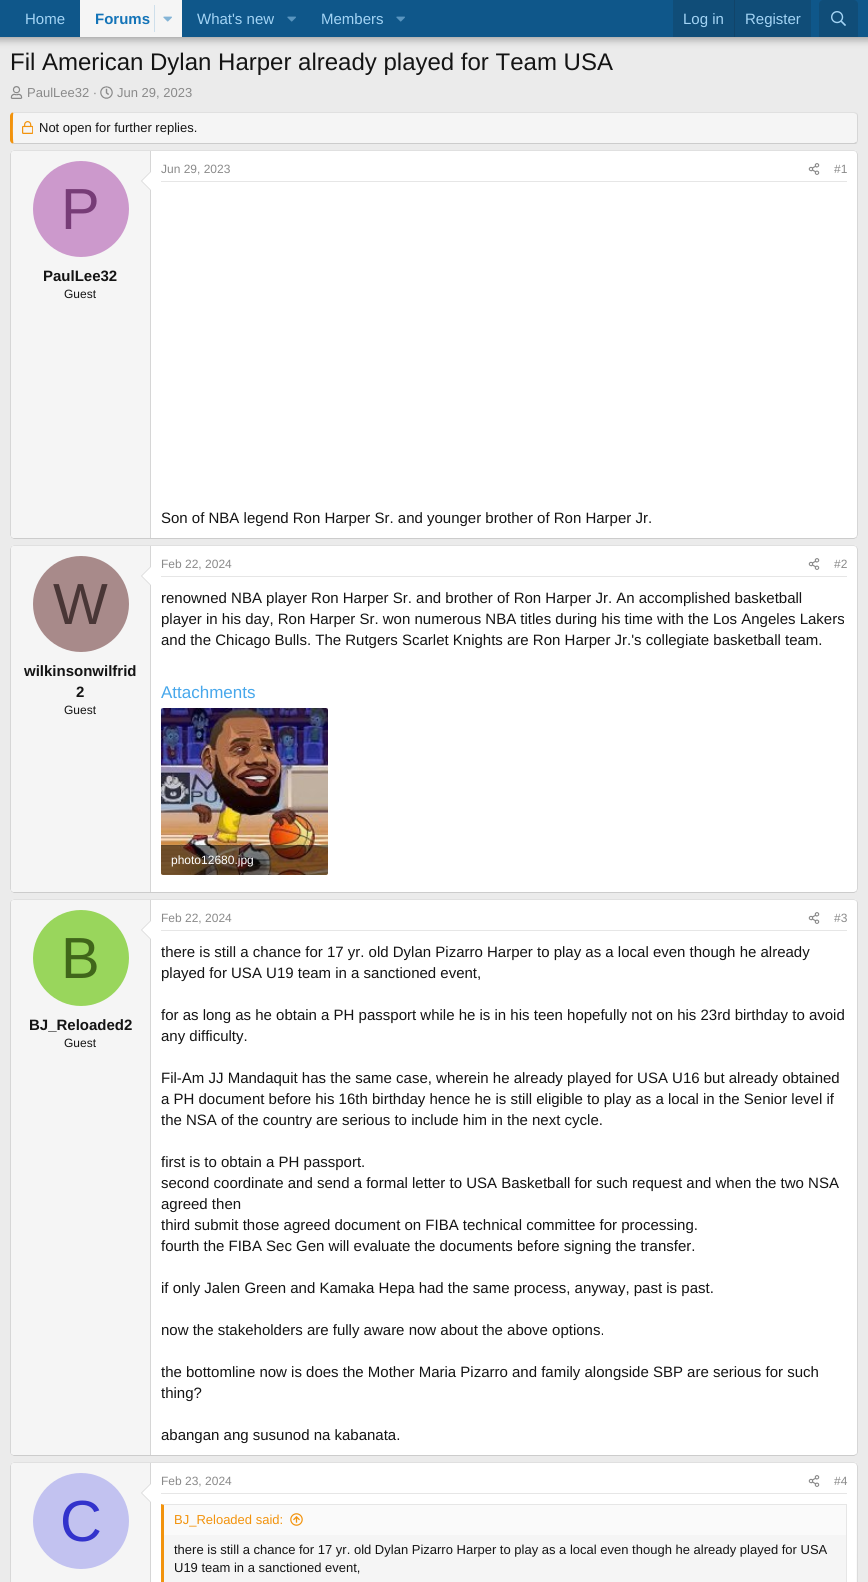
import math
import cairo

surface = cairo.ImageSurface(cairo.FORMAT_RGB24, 868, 1582)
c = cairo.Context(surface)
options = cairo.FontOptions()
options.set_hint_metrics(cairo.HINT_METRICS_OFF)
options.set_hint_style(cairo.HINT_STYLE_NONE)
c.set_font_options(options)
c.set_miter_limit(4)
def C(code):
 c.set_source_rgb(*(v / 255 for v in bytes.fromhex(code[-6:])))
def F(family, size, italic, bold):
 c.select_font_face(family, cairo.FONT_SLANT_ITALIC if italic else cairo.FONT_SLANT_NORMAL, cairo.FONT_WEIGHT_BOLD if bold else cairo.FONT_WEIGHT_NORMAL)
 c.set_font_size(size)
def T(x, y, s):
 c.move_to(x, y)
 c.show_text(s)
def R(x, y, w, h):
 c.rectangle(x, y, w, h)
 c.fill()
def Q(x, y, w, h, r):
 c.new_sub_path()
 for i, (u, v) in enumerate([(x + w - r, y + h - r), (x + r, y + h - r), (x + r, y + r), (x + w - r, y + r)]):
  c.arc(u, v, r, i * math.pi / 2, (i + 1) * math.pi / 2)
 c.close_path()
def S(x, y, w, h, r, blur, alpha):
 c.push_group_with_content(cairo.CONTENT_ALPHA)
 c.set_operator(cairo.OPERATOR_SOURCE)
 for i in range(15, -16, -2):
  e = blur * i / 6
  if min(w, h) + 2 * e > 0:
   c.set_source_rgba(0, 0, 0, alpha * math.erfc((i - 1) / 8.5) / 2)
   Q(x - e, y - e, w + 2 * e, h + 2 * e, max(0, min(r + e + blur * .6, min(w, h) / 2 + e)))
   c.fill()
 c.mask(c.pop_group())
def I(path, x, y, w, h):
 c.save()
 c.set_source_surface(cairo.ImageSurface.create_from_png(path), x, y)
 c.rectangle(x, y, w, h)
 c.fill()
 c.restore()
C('ebebeb')
c.paint()
C('000000')
S(-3,-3,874,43,0,4,.3)
C('0f578a')
R(0,0,868,37)
F('Liberation Sans',15,0,0)
C('a3d4f5')
T(25,24,'Home')
C('f5f5f5')
R(80,0,102,37)
F('Liberation Sans',15,0,1)
C('1474b8')
T(95,24,'Forums')
C('cedfeb')
R(154,5,1,27)
I('1.png',163,16,9,6)
F('Liberation Sans',15,0,0)
C('a3d4f5')
T(197,24,'What\'s new')
I('2.png',287,16,9,6)
T(321,24,'Members')
I('2.png',396,16,9,6)
C('104d78')
R(673,0,138,37)
C('a3d4f5')
T(683,24,'Log in')
C('114469')
R(734,0,1,37)
C('a3d4f5')
T(745,24,'Register')
C('104d78')
c.new_path()
c.move_to(823,0)
c.line_to(854,0)
c.curve_to(856,0,858,2,858,4)
c.line_to(858,37)
c.line_to(819,37)
c.line_to(819,4)
c.curve_to(819,2,821,0,823,0)
c.close_path()
c.fill()
I('3.png',831,11,15,15)
F('Liberation Sans',24,0,0)
C('141414')
T(10,70,'Fil American Dylan Harper already played for Team USA')
I('4.png',10,86,13,13)
F('Liberation Sans',13,0,0)
C('8a8a8a')
T(27,97,'PaulLee32 ·')
I('5.png',100,86,13,13)
T(117,97,'Jun 29, 2023')
C('f5f5f5')
c.new_path()
c.move_to(14,113)
c.line_to(854,113)
c.curve_to(856,113,857,114,857,116)
c.line_to(857,140)
c.curve_to(857,142,856,143,854,143)
c.line_to(14,143)
c.curve_to(13,143,13,142,13,140)
c.line_to(13,116)
c.curve_to(13,114,13,113,14,113)
c.close_path()
c.fill()
C('e0e0e0')
c.new_path()
c.move_to(14,112)
c.line_to(12,113)
c.line_to(13,113)
c.line_to(854,113)
c.line_to(856,114)
c.line_to(857,113)
c.line_to(854,112)
c.close_path()
c.fill()
C('d6d6d6')
c.new_path()
c.move_to(858,140)
c.line_to(858,116)
c.curve_to(858,115,857.5,114,857,113)
c.line_to(856,114)
c.curve_to(857,114,857,115,857,116)
c.line_to(857,140)
c.curve_to(857,141,857,142,856,142)
c.line_to(857,143)
c.curve_to(857.5,142,858,141,858,140)
c.close_path()
c.fill()
C('cccccc')
c.new_path()
c.move_to(14,144)
c.line_to(854,144)
c.curve_to(855,144,856,144,857,143)
c.line_to(856,142)
c.line_to(854,143)
c.line_to(13,143)
c.line_to(12,143)
c.close_path()
c.fill()
C('f2930d')
c.new_path()
c.move_to(10,116)
c.line_to(10,140)
c.curve_to(10,141.5,11,142.5,12,143.5)
c.line_to(13.5,143)
c.curve_to(12.5,142,13,119,13,116)
c.curve_to(13,115.5,13,113.5,13.5,113)
c.line_to(12,112.5)
c.curve_to(11,113.5,10,114.5,10,116)
c.close_path()
c.fill()
I('6.png',22,121,11,13)
C('141414')
T(39,132,'Not open for further replies.')
C('ffffff')
Q(10,150,848,389,4)
c.fill()
c.new_path()
c.move_to(11.5,151.5)
c.line_to(14,150.5)
c.line_to(854,150.5)
c.line_to(856.5,151.5)
C('e0e0e0')
c.set_line_width(1)
c.stroke()
c.new_path()
c.move_to(856.5,151.5)
c.line_to(857.5,154)
c.line_to(857.5,535)
c.line_to(856.5,537.5)
C('d6d6d6')
c.stroke()
c.new_path()
c.move_to(856.5,537.5)
c.line_to(854,538.5)
c.line_to(14,538.5)
c.line_to(11.5,537.5)
C('cccccc')
c.stroke()
c.new_path()
c.move_to(11.5,537.5)
c.line_to(10.5,535)
c.line_to(10.5,154)
c.line_to(11.5,151.5)
C('d6d6d6')
c.stroke()
C('f5f5f5')
c.new_path()
c.move_to(14,151)
c.line_to(151,151)
c.line_to(151,538)
c.line_to(14,538)
c.curve_to(12.5,538,11,536.5,11,535)
c.line_to(11,154)
c.curve_to(11,152.5,12.5,151,14,151)
c.close_path()
c.fill()
C('d6d6d6')
R(150,151,1,387)
c.new_path()
c.move_to(151,171)
c.line_to(151,191)
c.line_to(141,181)
c.close_path()
c.fill()
C('ffffff')
c.new_path()
c.move_to(151,172)
c.line_to(151,190)
c.line_to(142,181)
c.close_path()
c.fill()
C('cc99cc')
c.arc(81,209,48,0,2 * math.pi)
c.fill()
F('Liberation Sans',58,0,0)
C('773c77')
T(61,229,'P')
F('Liberation Sans',15,0,1)
C('141414')
T(43,281,'PaulLee32')
F('Liberation Sans',12,0,0)
T(64,298,'Guest')
C('e6e6e6')
R(161,181,686,1)
C('8a8a8a')
T(161,173,'Jun 29, 2023')
I('7.png',808,163,12,12)
T(834,173,'#1')
F('Liberation Sans',15,0,0)
C('141414')
T(161,523,'Son of NBA legend Ron Harper Sr. and younger brother of Ron Harper Jr.')
C('ffffff')
Q(10,545,848,348,4)
c.fill()
c.new_path()
c.move_to(11.5,546.5)
c.line_to(14,545.5)
c.line_to(854,545.5)
c.line_to(856.5,546.5)
C('e0e0e0')
c.stroke()
c.new_path()
c.move_to(856.5,546.5)
c.line_to(857.5,549)
c.line_to(857.5,889)
c.line_to(856.5,891.5)
C('d6d6d6')
c.stroke()
c.new_path()
c.move_to(856.5,891.5)
c.line_to(854,892.5)
c.line_to(14,892.5)
c.line_to(11.5,891.5)
C('cccccc')
c.stroke()
c.new_path()
c.move_to(11.5,891.5)
c.line_to(10.5,889)
c.line_to(10.5,549)
c.line_to(11.5,546.5)
C('d6d6d6')
c.stroke()
C('f5f5f5')
c.new_path()
c.move_to(14,546)
c.line_to(151,546)
c.line_to(151,892)
c.line_to(14,892)
c.curve_to(12.5,892,11,890.5,11,889)
c.line_to(11,549)
c.curve_to(11,547.5,12.5,546,14,546)
c.close_path()
c.fill()
C('d6d6d6')
R(150,546,1,346)
c.new_path()
c.move_to(151,566)
c.line_to(151,586)
c.line_to(141,576)
c.close_path()
c.fill()
C('ffffff')
c.new_path()
c.move_to(151,567)
c.line_to(151,585)
c.line_to(142,576)
c.close_path()
c.fill()
C('a88a8a')
c.arc(81,604,48,0,2 * math.pi)
c.fill()
F('Liberation Sans',58,0,0)
C('493636')
T(53,624,'W')
F('Liberation Sans',15,0,1)
C('141414')
T(24,676,'wilkinsonwilfrid')
T(76,697,'2')
F('Liberation Sans',12,0,0)
T(64,714,'Guest')
C('e6e6e6')
R(161,576,686,1)
C('8a8a8a')
T(161,568,'Feb 22, 2024')
I('7.png',808,558,12,12)
T(834,568,'#2')
F('Liberation Sans',15,0,0)
C('141414')
T(161,603,'renowned NBA player Ron Harper Sr. and brother of Ron Harper Jr. An accomplished basketball')
T(161,624,'player in his day, Ron Harper Sr. won numerous NBA titles during his time with the Los Angeles Lakers')
T(161,645,'and the Chicago Bulls. The Rutgers Scarlet Knights are Ron Harper Jr.\'s collegiate basketball team.')
F('Liberation Sans',17,0,0)
C('47a7eb')
T(161,698,'Attachments')
I('8.png',161,708,167,167)
c.set_source_rgba(0,0,0,0.5)
c.new_path()
c.move_to(161,845)
c.line_to(328,845)
c.line_to(328,873)
c.curve_to(328,874,327,875,326,875)
c.line_to(163,875)
c.curve_to(162,875,161,874,161,873)
c.close_path()
c.fill()
F('Liberation Sans',12,0,0)
C('ffffff')
T(171,864,'photo12680.jpg')
Q(10,899,848,557,4)
c.fill()
c.new_path()
c.move_to(11.5,900.5)
c.line_to(14,899.5)
c.line_to(854,899.5)
c.line_to(856.5,900.5)
C('e0e0e0')
c.stroke()
c.new_path()
c.move_to(856.5,900.5)
c.curve_to(857,901,857.5,902,857.5,903)
c.line_to(857.5,1452)
c.curve_to(857.5,1453,857,1454,856.5,1454.5)
C('d6d6d6')
c.stroke()
c.new_path()
c.move_to(856.5,1454.5)
c.line_to(854,1455.5)
c.line_to(14,1455.5)
c.line_to(11.5,1454.5)
C('cccccc')
c.stroke()
c.new_path()
c.move_to(11.5,1454.5)
c.curve_to(11,1454,10.5,1453,10.5,1452)
c.line_to(10.5,903)
c.curve_to(10.5,902,11,901,11.5,900.5)
C('d6d6d6')
c.stroke()
C('f5f5f5')
c.new_path()
c.move_to(14,900)
c.line_to(151,900)
c.line_to(151,1455)
c.line_to(14,1455)
c.curve_to(12.5,1455,11,1453.5,11,1452)
c.line_to(11,903)
c.curve_to(11,901.5,12.5,900,14,900)
c.close_path()
c.fill()
C('d6d6d6')
R(150,900,1,555)
c.new_path()
c.move_to(151,920)
c.line_to(151,940)
c.line_to(141,930)
c.close_path()
c.fill()
C('ffffff')
c.new_path()
c.move_to(151,921)
c.line_to(151,939)
c.line_to(142,930)
c.close_path()
c.fill()
C('99d65c')
c.arc(81,958,48,0,2 * math.pi)
c.fill()
F('Liberation Sans',58,0,0)
C('40661a')
T(61,978,'B')
F('Liberation Sans',15,0,1)
C('141414')
T(29,1030,'BJ_Reloaded2')
F('Liberation Sans',12,0,0)
T(64,1047,'Guest')
C('e6e6e6')
R(161,930,686,1)
C('8a8a8a')
T(161,922,'Feb 22, 2024')
I('7.png',808,912,12,12)
T(834,922,'#3')
F('Liberation Sans',15,0,0)
C('141414')
T(161,957,'there is still a chance for 17 yr. old Dylan Pizarro Harper to play as a local even though he already')
T(161,978,'played for USA U19 team in a sanctioned event,')
T(161,1020,'for as long as he obtain a PH passport while he is in his teen hopefully not on his 23rd birthday to avoid')
T(161,1041,'any difficulty.')
T(161,1083,'Fil-Am JJ Mandaquit has the same case, wherein he already played for USA U16 but already obtained')
T(161,1104,'a PH document before his 16th birthday hence he is still eligible to play as a local in the Senior level if')
T(161,1125,'the NSA of the country are serious to include him in the next cycle.')
T(161,1167,'first is to obtain a PH passport.')
T(161,1188,'second coordinate and send a formal letter to USA Basketball for such request and when the two NSA')
T(161,1209,'agreed then')
T(161,1230,'third submit those agreed document on FIBA technical committee for processing.')
T(161,1251,'fourth the FIBA Sec Gen will evaluate the documents before signing the transfer.')
T(161,1293,'if only Jalen Green and Kamaka Hepa had the same process, anyway, past is past.')
T(161,1335,'now the stakeholders are fully aware now about the above options.')
T(161,1377,'the bottomline now is does the Mother Maria Pizarro and family alongside SBP are serious for such')
T(161,1398,'thing?')
T(161,1440,'abangan ang susunod na kabanata.')
C('ffffff')
Q(10,1462,848,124,4)
c.fill()
c.new_path()
c.move_to(11.5,1463.5)
c.line_to(14,1462.5)
c.line_to(854,1462.5)
c.line_to(856.5,1463.5)
C('e0e0e0')
c.stroke()
c.new_path()
c.move_to(856.5,1463.5)
c.line_to(857.5,1466)
c.line_to(857,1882.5)
c.line_to(856.5,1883.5)
C('d6d6d6')
c.stroke()
c.new_path()
c.move_to(11.5,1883.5)
c.line_to(11,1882.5)
c.line_to(10.5,1535)
c.line_to(10.5,1466)
c.line_to(11.5,1463.5)
c.stroke()
C('f5f5f5')
c.new_path()
c.move_to(14,1463)
c.line_to(151,1463)
c.line_to(151,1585)
c.line_to(14,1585)
c.curve_to(12.5,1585,11,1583.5,11,1582)
c.line_to(11,1466)
c.curve_to(11,1464.5,12.5,1463,14,1463)
c.close_path()
c.fill()
C('d6d6d6')
R(150,1463,1,119)
c.new_path()
c.move_to(151,1483)
c.line_to(151,1503)
c.line_to(141,1493)
c.close_path()
c.fill()
C('ffffff')
c.new_path()
c.move_to(151,1484)
c.line_to(151,1502)
c.line_to(142,1493)
c.close_path()
c.fill()
C('c2c2f0')
c.arc(81,1521,48,0,2 * math.pi)
c.fill()
F('Liberation Sans',58,0,0)
C('3333cc')
T(60,1541,'C')
C('e6e6e6')
R(161,1493,686,1)
F('Liberation Sans',12,0,0)
C('8a8a8a')
T(161,1485,'Feb 23, 2024')
I('7.png',808,1475,12,12)
T(834,1485,'#4')
C('f5f5f5')
R(164,1535,682,47)
C('e6e6e6')
c.new_path()
c.move_to(161,1504)
c.line_to(847,1504)
c.line_to(846,1505)
c.line_to(164,1505)
c.close_path()
c.fill()
R(846,1504,1,78)
C('f2930d')
c.new_path()
c.move_to(161,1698)
c.line_to(161,1504)
c.line_to(164,1505)
c.line_to(164,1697)
c.close_path()
c.fill()
C('fafafa')
R(164,1505,682,30)
F('Liberation Sans',13,0,0)
C('f2930d')
T(174,1524,'BJ_Reloaded said:')
I('9.png',290,1513,13,13)
C('141414')
T(174,1554,'there is still a chance for 17 yr. old Dylan Pizarro Harper to play as a local even though he already played for USA')
T(174,1572,'U19 team in a sanctioned event,')
surface.write_to_png('o.png')
